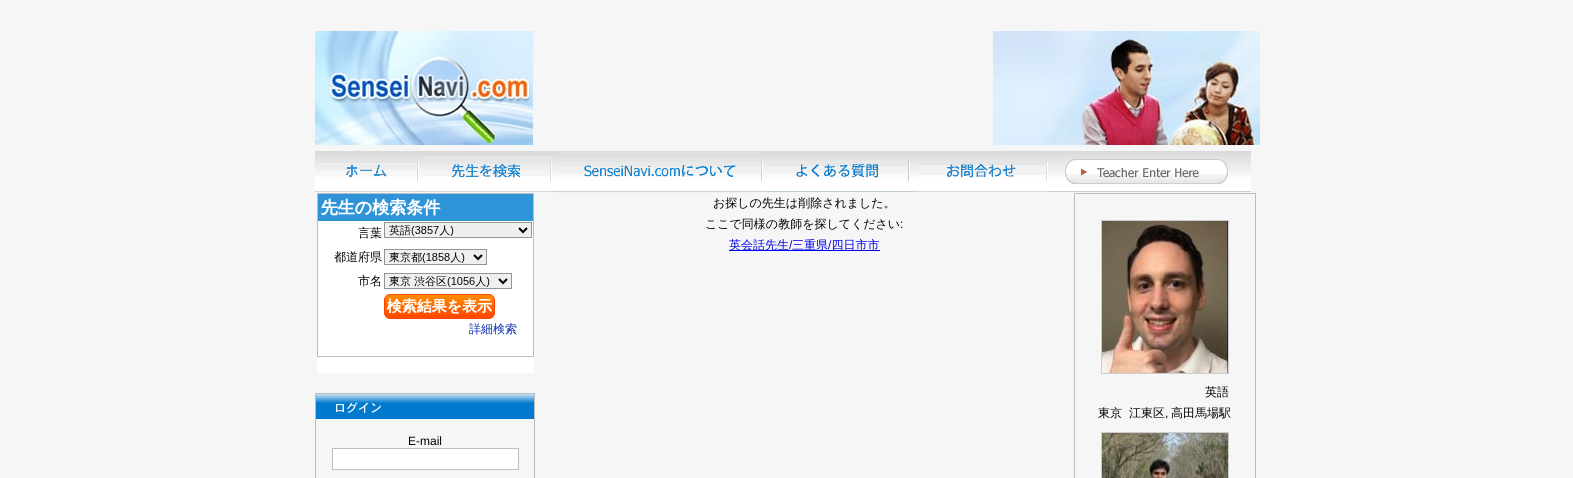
import math
import cairo

surface = cairo.ImageSurface(cairo.FORMAT_RGB24, 1573, 478)
c = cairo.Context(surface)
options = cairo.FontOptions()
options.set_hint_metrics(cairo.HINT_METRICS_OFF)
options.set_hint_style(cairo.HINT_STYLE_NONE)
c.set_font_options(options)
c.set_miter_limit(4)
def C(code):
 c.set_source_rgb(*(v / 255 for v in bytes.fromhex(code[-6:])))
def F(family, size, italic, bold):
 c.select_font_face(family, cairo.FONT_SLANT_ITALIC if italic else cairo.FONT_SLANT_NORMAL, cairo.FONT_WEIGHT_BOLD if bold else cairo.FONT_WEIGHT_NORMAL)
 c.set_font_size(size)
def T(x, y, s):
 c.move_to(x, y)
 c.show_text(s)
def R(x, y, w, h):
 c.rectangle(x, y, w, h)
 c.fill()
def I(path, x, y, w, h):
 c.save()
 c.set_source_surface(cairo.ImageSurface.create_from_png(path), x, y)
 c.rectangle(x, y, w, h)
 c.fill()
 c.restore()
C('f6f6f6')
c.paint()
I('1.png',315,31,218,114)
I('2.png',993,31,267,114)
I('3.png',315,151,105,41)
I('4.png',316,161,103,31)
I('5.png',420,151,135,41)
I('6.png',423,155,129,37)
I('7.png',555,151,210,41)
I('8.png',557,151,206,42)
I('9.png',765,151,147,41)
I('10.png',767,161,143,31)
I('11.png',912,151,141,41)
I('12.png',918,161,130,31)
I('13.png',1053,151,1,41)
I('14.png',1054,151,185,41)
I('15.png',1065,159,163,25)
I('16.png',1239,151,12,41)
F('WenQuanYi Zen Hei Medium',12,0,0)
C('000000')
T(713,207,'お探しの先生は削除されました。')
T(705,228,'ここで同様の教師を探してください')
F('Liberation Sans',12,0,0)
T(900,228,':')
C('0000ee')
R(729,250,151,1)
F('WenQuanYi Zen Hei Medium',12,0,0)
T(729,249,'英会話先生')
F('Liberation Sans',12,0,0)
T(789,249,'/')
F('WenQuanYi Zen Hei Medium',12,0,0)
T(792,249,'三重県 四日市市')
F('Liberation Sans',12,0,0)
T(828,249,'/')
c.rectangle(1074.5,193.5,181,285)
C('bdbdbd')
c.set_line_width(1)
c.stroke()
c.rectangle(1101.5,220.5,127,153)
C('cccccc')
c.stroke()
I('17.png',1102,221,126,152)
F('WenQuanYi Zen Hei Medium',12,0,0)
C('000000')
T(1205,396,'英語')
T(1098,417,'東京')
T(1129,417,'江東区')
F('Liberation Sans',12,0,0)
T(1165,417,',')
F('WenQuanYi Zen Hei Medium',12,0,0)
T(1171,417,'高田馬場駅')
c.rectangle(1101.5,432.5,127,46)
C('cccccc')
c.stroke()
I('18.png',1102,433,126,45)
I('19.png',317,193,217,180)
c.rectangle(315.5,393.5,219,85)
C('bdbdbd')
c.stroke()
I('20.png',316,394,218,25)
F('Liberation Sans',12,0,0)
C('000000')
T(408,445,'E-mail')
C('ffffff')
c.rectangle(332.5,448.5,186,21)
c.fill_preserve()
C('bdbdbd')
c.stroke()
surface.write_to_png('o.png')
